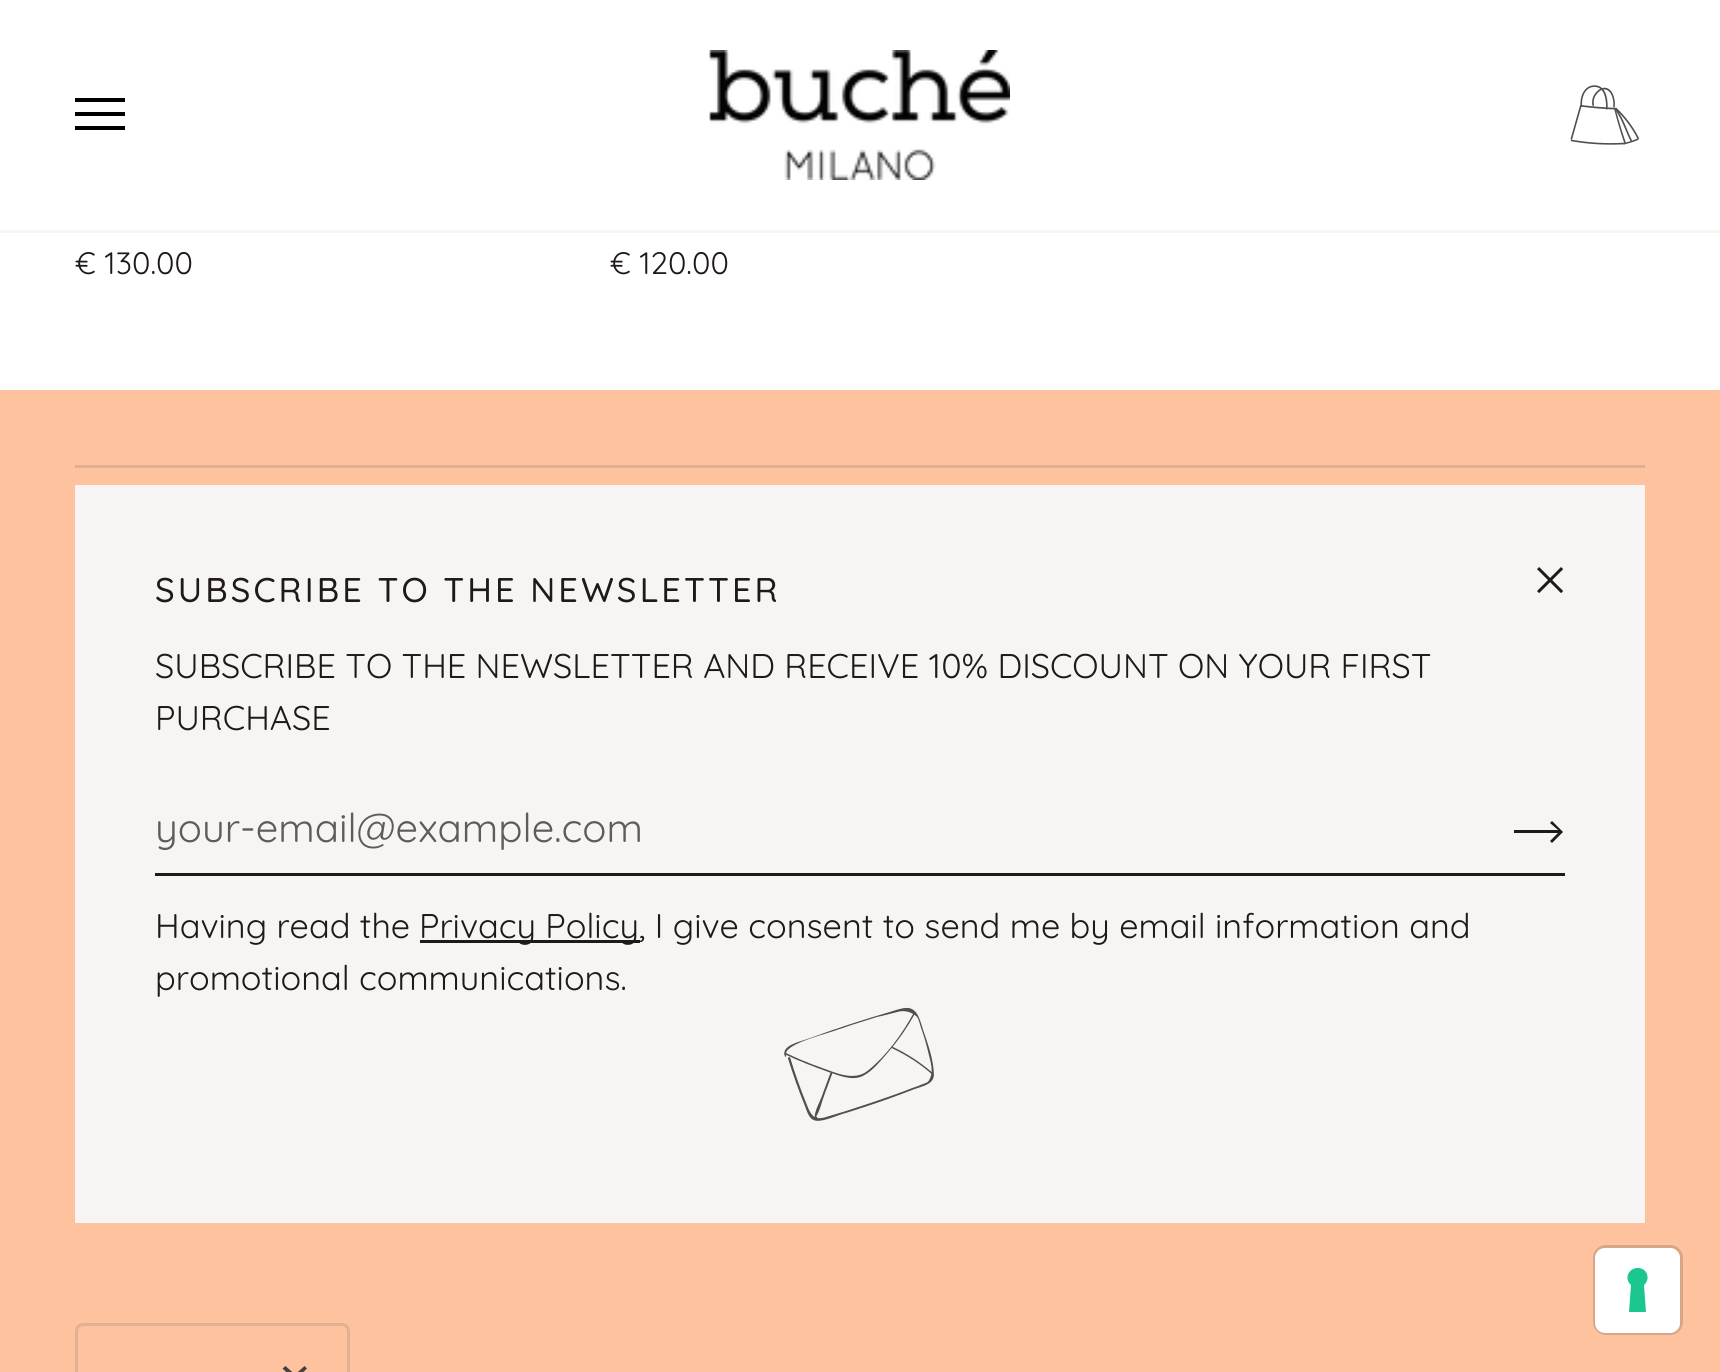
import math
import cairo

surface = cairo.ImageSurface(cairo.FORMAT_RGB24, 1720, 1372)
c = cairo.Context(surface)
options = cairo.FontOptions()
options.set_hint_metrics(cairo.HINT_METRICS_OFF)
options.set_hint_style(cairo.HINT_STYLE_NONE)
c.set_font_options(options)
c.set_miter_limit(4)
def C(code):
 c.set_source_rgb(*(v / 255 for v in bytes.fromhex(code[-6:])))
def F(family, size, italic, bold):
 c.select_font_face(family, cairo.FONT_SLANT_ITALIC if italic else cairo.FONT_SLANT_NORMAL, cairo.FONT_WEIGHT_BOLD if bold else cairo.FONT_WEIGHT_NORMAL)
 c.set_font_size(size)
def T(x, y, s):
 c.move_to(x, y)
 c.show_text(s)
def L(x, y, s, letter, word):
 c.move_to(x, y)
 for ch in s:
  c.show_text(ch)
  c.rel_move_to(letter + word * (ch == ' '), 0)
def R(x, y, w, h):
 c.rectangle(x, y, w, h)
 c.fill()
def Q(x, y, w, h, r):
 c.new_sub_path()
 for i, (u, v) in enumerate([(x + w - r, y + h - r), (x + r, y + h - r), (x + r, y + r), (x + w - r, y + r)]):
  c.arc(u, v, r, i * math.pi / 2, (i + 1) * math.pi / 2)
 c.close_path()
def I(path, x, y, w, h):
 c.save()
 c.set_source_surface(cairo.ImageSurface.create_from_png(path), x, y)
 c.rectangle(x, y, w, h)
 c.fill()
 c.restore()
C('ffffff')
c.paint()
C('f7f5f4')
R(0,230,1720,3)
C('000000')
c.new_path()
c.move_to(75,98)
c.line_to(125,98)
c.line_to(125,102)
c.line_to(75,102)
c.close_path()
c.move_to(75,112)
c.line_to(125,112)
c.line_to(125,116)
c.line_to(75,116)
c.close_path()
c.move_to(75,126)
c.line_to(125,126)
c.line_to(125,130)
c.line_to(75,130)
c.close_path()
c.fill()
I('1.png',709,50,301,130)
I('2.png',1570,85,69,60)
F('Quicksand',31,0,0)
C('1f1919')
T(75,274,'€ 130.00')
T(610,274,'€ 120.00')
C('fec29f')
R(0,390,1720,982)
Q(76.5,1324.5,272,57,6.5)
C('e2af91')
c.set_line_width(3)
c.stroke()
C('424242')
c.set_fill_rule(cairo.FILL_RULE_EVEN_ODD)
c.new_path()
c.move_to(282.5,1368.5)
c.line_to(285.5,1366)
c.line_to(295,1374.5)
c.line_to(304.5,1366)
c.line_to(307,1368.5)
c.line_to(295,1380)
c.close_path()
c.fill()
C('e2af91')
R(75,465,1570,3)
C('f7f5f4')
R(75,485,1570,738)
F('Quicksand Medium',34.25,0,0)
C('1f1919')
L(155,602,'SUBSCRIBE TO THE NEWSLETTER',3.1,0)
I('3.png',1537,567,27,27)
F('Quicksand',34.25,0,0)
T(155,678,'SUBSCRIBE TO THE NEWSLETTER AND RECEIVE 10% DISCOUNT ON YOUR FIRST')
T(155,730,'PURCHASE')
R(155,873,1410,3)
F('Quicksand',40,0,0)
C('605b5b')
T(155,842,'your-email@example.com')
C('1f1919')
c.set_fill_rule(cairo.FILL_RULE_WINDING)
c.new_path()
c.move_to(1550,823)
c.line_to(1552,821)
c.line_to(1563,832)
c.line_to(1552,843)
c.line_to(1550,841)
c.line_to(1558,833)
c.line_to(1514,833)
c.line_to(1514,830)
c.line_to(1558,830)
c.close_path()
c.fill()
F('Quicksand',34.25,0,0)
T(155,938,'Having read the')
R(420,940,220,3)
T(419,938,'Privacy Policy, I give consent to send me by email information and')
T(155,990,'promotional communications.')
I('4.png',784,1007,150,114)
Q(1594.5,1246.5,87,87,11.5)
C('d8a587')
c.stroke()
C('ffffff')
Q(1595,1248,85,85,10)
c.fill()
C('1cc691')
c.set_fill_rule(cairo.FILL_RULE_EVEN_ODD)
c.new_path()
c.move_to(1638,1268)
c.curve_to(1647,1268,1651,1279,1644,1285)
c.line_to(1646,1312)
c.line_to(1629,1312)
c.line_to(1631,1285)
c.curve_to(1624,1279,1628,1268,1638,1268)
c.close_path()
c.fill()
surface.write_to_png('o.png')
